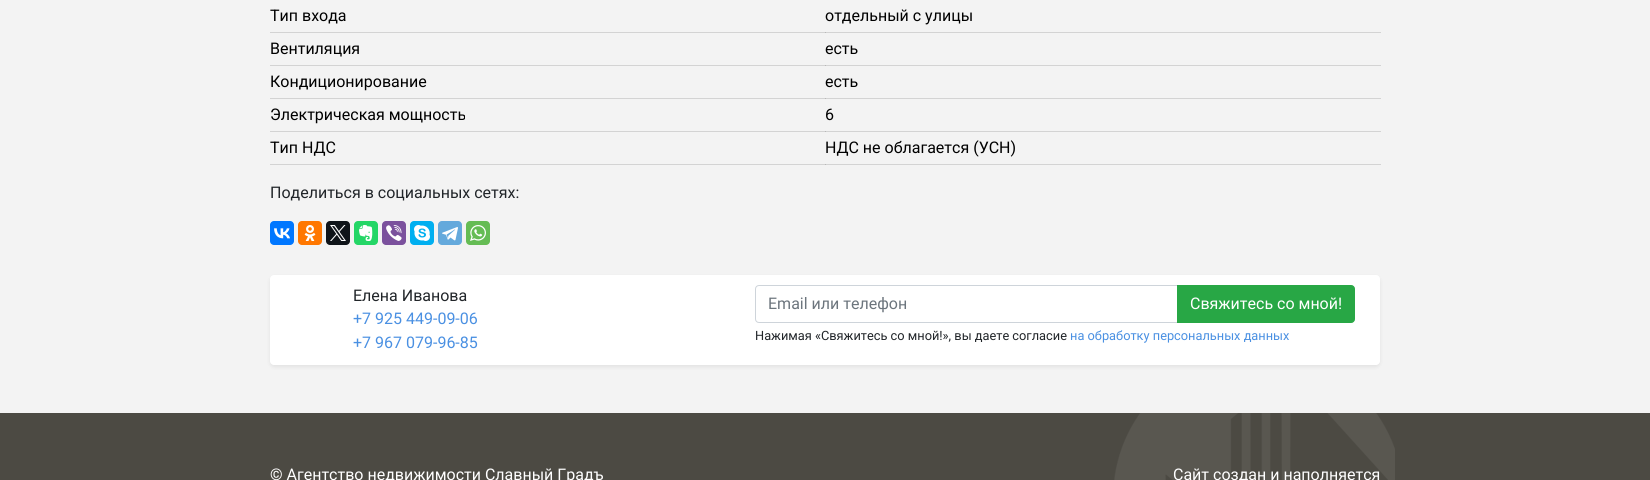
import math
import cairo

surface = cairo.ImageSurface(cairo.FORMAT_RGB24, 1650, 480)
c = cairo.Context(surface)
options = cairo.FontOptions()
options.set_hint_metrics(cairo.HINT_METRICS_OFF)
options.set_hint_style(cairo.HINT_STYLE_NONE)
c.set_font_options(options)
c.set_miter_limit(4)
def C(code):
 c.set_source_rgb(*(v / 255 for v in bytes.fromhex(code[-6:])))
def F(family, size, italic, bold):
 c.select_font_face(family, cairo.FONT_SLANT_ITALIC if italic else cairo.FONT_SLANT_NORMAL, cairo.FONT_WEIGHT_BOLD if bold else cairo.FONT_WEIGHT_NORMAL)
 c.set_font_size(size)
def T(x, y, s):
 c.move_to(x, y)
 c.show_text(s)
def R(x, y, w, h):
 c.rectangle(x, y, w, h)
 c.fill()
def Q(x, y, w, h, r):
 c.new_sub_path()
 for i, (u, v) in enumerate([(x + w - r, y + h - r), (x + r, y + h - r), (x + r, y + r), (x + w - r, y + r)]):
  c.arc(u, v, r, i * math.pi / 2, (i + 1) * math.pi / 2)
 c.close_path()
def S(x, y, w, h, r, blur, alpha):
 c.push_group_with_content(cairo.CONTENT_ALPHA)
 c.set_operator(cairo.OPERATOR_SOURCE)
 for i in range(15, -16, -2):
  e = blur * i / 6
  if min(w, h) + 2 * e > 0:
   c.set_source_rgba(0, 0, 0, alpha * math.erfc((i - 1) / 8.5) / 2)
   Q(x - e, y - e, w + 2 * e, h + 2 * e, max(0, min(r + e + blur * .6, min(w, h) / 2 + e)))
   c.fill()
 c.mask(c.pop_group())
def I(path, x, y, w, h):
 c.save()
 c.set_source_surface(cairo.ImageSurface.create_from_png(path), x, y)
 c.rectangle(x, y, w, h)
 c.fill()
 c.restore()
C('f3f3f3')
c.paint()
C('d3d3d3')
R(270,32,1111,1)
R(270,65,1111,1)
R(270,98,1111,1)
R(270,131,1111,1)
R(270,164,1111,1)
F('Roboto',16,0,0)
C('000000')
T(270,21,'Тип входа')
C('b8b8b8')
R(825,32,1,1)
C('000000')
T(825,21,'отдельный с улицы')
T(270,54,'Вентиляция')
C('b8b8b8')
R(825,65,1,1)
C('000000')
T(825,54,'есть')
T(270,87,'Кондиционирование')
C('b8b8b8')
R(825,98,1,1)
C('000000')
T(825,87,'есть')
T(270,120,'Электрическая мощность')
C('b8b8b8')
R(825,131,1,1)
C('000000')
T(825,120,'6')
T(270,153,'Тип НДС')
C('b8b8b8')
R(825,164,1,1)
C('000000')
T(825,153,'НДС не облагается (УСН)')
C('212529')
T(270,198,'Поделиться в социальных сетях:')
C('0077ff')
Q(270,221,24,24,4)
c.fill()
I('1.png',274,228,16,11)
C('ff7700')
Q(298,221,24,24,4)
c.fill()
I('2.png',304,225,12,16)
C('0f1419')
Q(326,221,24,24,4)
c.fill()
I('3.png',330,225,16,16)
C('24d666')
Q(354,221,24,24,4)
c.fill()
I('4.png',359,225,14,16)
C('7b519d')
Q(382,221,24,24,4)
c.fill()
I('5.png',386,225,16,16)
C('00aff0')
Q(410,221,24,24,4)
c.fill()
I('6.png',414,225,16,16)
C('64a9dc')
Q(438,221,24,24,4)
c.fill()
I('7.png',442,227,16,14)
C('65bc54')
Q(466,221,24,24,4)
c.fill()
I('8.png',470,225,16,16)
C('000000')
S(270,277,1110,90,4,2,.07)
C('ffffff')
Q(270,275,1110,90,4)
c.fill()
C('212529')
T(353,301,'Елена Иванова')
C('4a90e2')
T(353,324,'+7 925 449-09-06')
T(353,348,'+7 967 079-96-85')
c.new_path()
c.move_to(759,285.5)
c.line_to(1177.5,285.5)
c.line_to(1177.5,322.5)
c.line_to(759,322.5)
c.curve_to(757,322.5,755.5,321,755.5,319)
c.line_to(755.5,289)
c.curve_to(755.5,287,757,285.5,759,285.5)
c.close_path()
C('ced4da')
c.set_line_width(1)
c.stroke()
C('6c757d')
T(768,309,'Email или телефон')
C('28a745')
c.new_path()
c.move_to(1177.5,285.5)
c.line_to(1351,285.5)
c.curve_to(1353,285.5,1354.5,287,1354.5,289)
c.line_to(1354.5,319)
c.curve_to(1354.5,321,1353,322.5,1351,322.5)
c.line_to(1177.5,322.5)
c.close_path()
c.fill_preserve()
c.stroke()
C('ffffff')
T(1190,309,'Свяжитесь со мной!')
F('Roboto',12.8,0,0)
C('212529')
T(755,340,'Нажимая «Свяжитесь со мной!», вы даете согласие')
C('4a90e2')
T(1070,340,'на обработку персональных данных')
C('4c4a43')
R(0,413,1650,67)
I('9.png',1114,413,281,67)
F('Roboto',16,0,0)
C('ffffff')
T(270,480,'© Агентство недвижимости Славный Градъ')
T(1173,480,'Сайт создан и наполняется')
surface.write_to_png('o.png')
